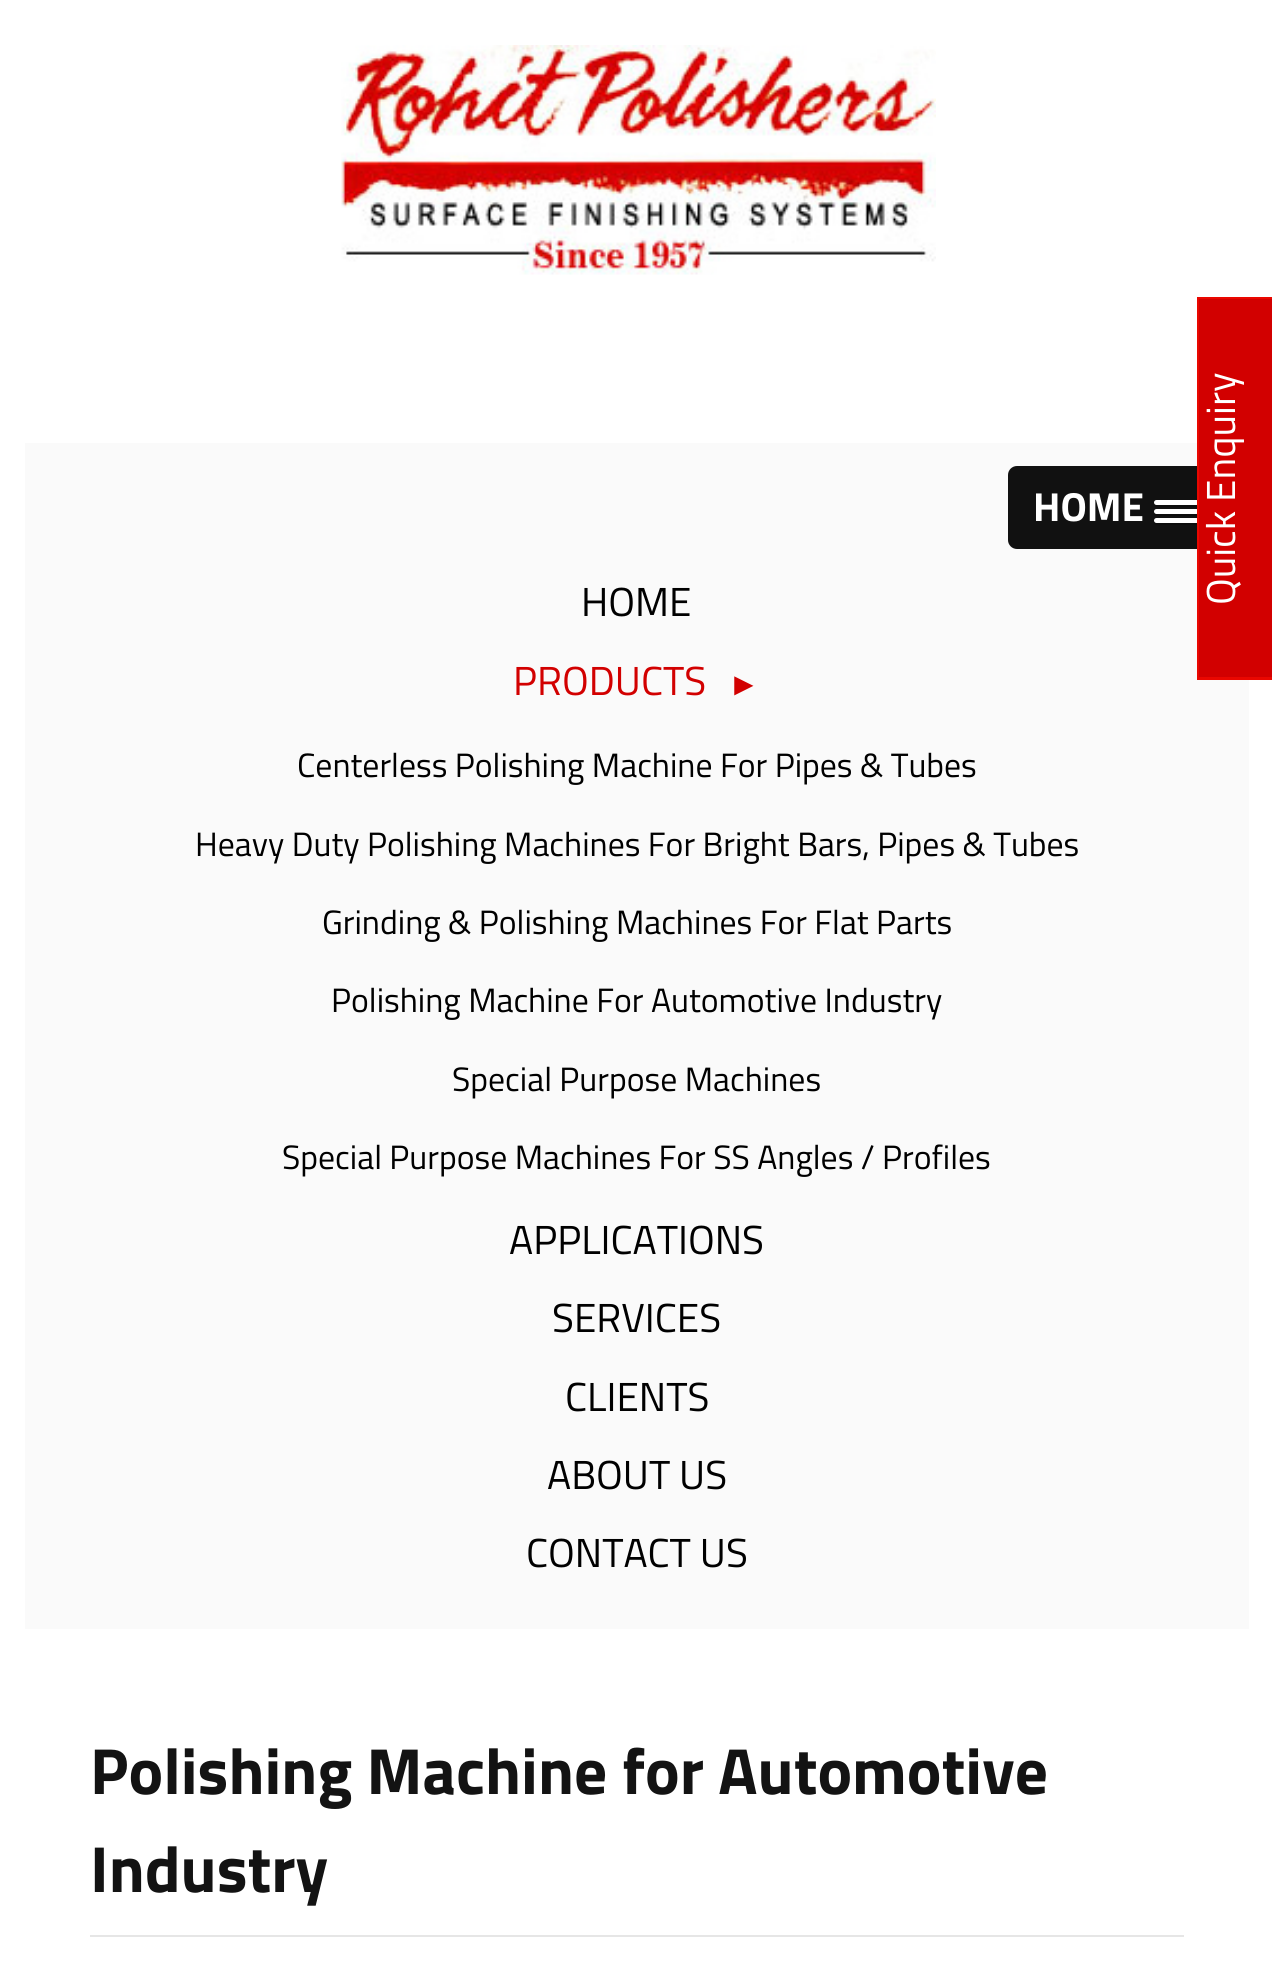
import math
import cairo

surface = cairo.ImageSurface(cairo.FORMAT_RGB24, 1272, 1973)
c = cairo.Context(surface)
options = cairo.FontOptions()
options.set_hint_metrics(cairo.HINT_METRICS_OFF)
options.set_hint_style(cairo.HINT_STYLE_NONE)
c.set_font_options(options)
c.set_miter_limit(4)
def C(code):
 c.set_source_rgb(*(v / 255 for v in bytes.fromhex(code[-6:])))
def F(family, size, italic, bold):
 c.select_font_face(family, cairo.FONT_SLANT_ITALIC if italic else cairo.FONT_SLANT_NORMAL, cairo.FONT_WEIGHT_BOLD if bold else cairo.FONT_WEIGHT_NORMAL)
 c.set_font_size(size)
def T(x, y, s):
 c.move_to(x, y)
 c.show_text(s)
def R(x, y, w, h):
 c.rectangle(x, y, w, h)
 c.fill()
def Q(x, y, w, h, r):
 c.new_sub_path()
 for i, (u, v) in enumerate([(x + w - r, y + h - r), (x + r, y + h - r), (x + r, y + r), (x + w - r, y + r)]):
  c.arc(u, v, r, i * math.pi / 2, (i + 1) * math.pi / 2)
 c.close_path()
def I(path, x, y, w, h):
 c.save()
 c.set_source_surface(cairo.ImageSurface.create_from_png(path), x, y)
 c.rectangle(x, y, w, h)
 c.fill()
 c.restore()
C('ffffff')
c.paint()
I('1.png',341,45,595,230)
C('fafafa')
R(25,443,1224,1186)
C('111111')
Q(1008,466,218,83,9)
c.fill()
F('Titillium Web',40.5,0,1)
C('ffffff')
T(1033,521,'HOME')
C('0d0d0d')
c.new_path()
c.move_to(1155,503)
c.line_to(1154,505)
c.curve_to(1155,509,1162,507,1163,507)
c.line_to(1190,507)
c.curve_to(1190,507,1202,508,1199,503)
c.curve_to(1197,505,1168,504,1163,504)
c.curve_to(1163,504,1156,505,1155,503)
c.close_path()
c.fill()
C('ffffff')
Q(1154,500,45,5,2.5)
c.fill()
C('0d0d0d')
c.new_path()
c.move_to(1155,512)
c.line_to(1154,514)
c.curve_to(1155,518,1162,516,1163,516)
c.line_to(1190,516)
c.curve_to(1190,516,1202,517,1199,512)
c.curve_to(1197,514,1168,513,1163,513)
c.curve_to(1163,513,1156,514,1155,512)
c.close_path()
c.fill()
C('ffffff')
Q(1154,509,45,5,2.5)
c.fill()
C('0d0d0d')
c.new_path()
c.move_to(1155,521)
c.line_to(1154,523)
c.curve_to(1155,527,1162,525,1163,525)
c.line_to(1190,525)
c.curve_to(1190,525,1202,526,1199,521)
c.curve_to(1197,523,1168,522,1163,522)
c.curve_to(1163,522,1156,523,1155,521)
c.close_path()
c.fill()
C('ffffff')
Q(1154,518,45,5,2.5)
c.fill()
F('Titillium Web',40.5,0,0)
C('000000')
T(581,616,'HOME')
C('d20000')
T(513,695,'PRODUCTS')
F('Liberation Sans',32,0,0)
T(728,695,'►')
F('Titillium Web',33.75,0,0)
C('000000')
T(297,777,'Centerless Polishing Machine For Pipes & Tubes')
T(195,856,'Heavy Duty Polishing Machines For Bright Bars, Pipes & Tubes')
T(322,934,'Grinding & Polishing Machines For Flat Parts')
T(331,1012,'Polishing Machine For Automotive Industry')
T(452,1091,'Special Purpose Machines')
T(282,1169,'Special Purpose Machines For SS Angles / Profiles')
F('Titillium Web',40.5,0,0)
T(509,1254,'APPLICATIONS')
T(552,1332,'SERVICES')
T(565,1411,'CLIENTS')
T(547,1489,'ABOUT US')
T(526,1567,'CONTACT US')
C('e6e6e6')
R(90,1935,1094,2)
F('Titillium Web',65.25,0,1)
C('131313')
T(90,1794,'Polishing Machine for Automotive')
T(90,1892,'Industry')
C('d20000')
R(1199,299,73,378)
C('ea0700')
R(1197,297,2,383)
R(1197,297,75,2)
R(1197,677,75,3)
F('Titillium Web',40.5,0,0)
C('ffffff')
c.save()
c.translate(1235,605)
c.rotate(-90 * math.pi / 180)
T(0,0,'Quick Enquiry')
c.restore()
surface.write_to_png('o.png')
